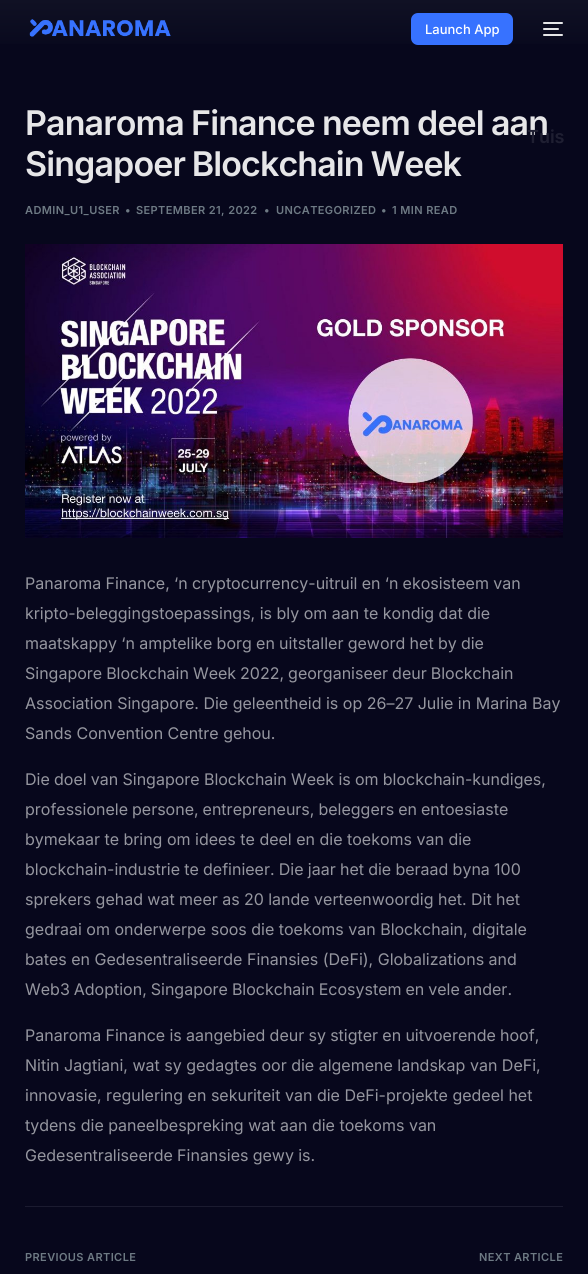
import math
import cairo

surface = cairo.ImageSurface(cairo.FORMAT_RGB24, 588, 1274)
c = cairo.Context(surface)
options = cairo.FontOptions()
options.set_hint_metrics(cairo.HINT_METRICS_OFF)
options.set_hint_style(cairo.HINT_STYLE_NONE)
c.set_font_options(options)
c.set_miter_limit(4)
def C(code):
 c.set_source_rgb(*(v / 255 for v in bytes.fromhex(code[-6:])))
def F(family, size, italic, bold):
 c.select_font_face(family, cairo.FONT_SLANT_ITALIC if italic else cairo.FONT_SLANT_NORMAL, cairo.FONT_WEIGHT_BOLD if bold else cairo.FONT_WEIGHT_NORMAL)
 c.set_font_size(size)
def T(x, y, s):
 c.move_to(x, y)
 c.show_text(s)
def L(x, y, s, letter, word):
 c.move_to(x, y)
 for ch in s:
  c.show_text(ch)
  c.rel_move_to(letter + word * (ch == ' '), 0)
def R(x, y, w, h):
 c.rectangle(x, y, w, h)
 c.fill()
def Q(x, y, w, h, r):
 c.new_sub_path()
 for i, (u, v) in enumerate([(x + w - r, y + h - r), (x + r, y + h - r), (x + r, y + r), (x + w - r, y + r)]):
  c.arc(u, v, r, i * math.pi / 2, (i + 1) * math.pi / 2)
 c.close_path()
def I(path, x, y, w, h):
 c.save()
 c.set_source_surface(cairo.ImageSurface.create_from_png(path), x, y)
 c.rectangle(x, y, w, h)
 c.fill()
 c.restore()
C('07071c')
c.paint()
gradient = cairo.LinearGradient(294,0,294,58)
gradient.add_color_stop_rgba(0,0.063,0.067,0.141,1)
gradient.add_color_stop_rgba(1,0.027,0.027,0.11,1)
c.set_source(gradient)
R(0,0,588,44)
I('1.png',29,19,142,18)
C('3772ff')
Q(411,13,102,32,7)
c.fill()
F('Inter Medium',13,0,0)
C('ffffff')
T(425,34,'Launch App')
C('e6e6e8')
Q(543,22,20,2,1)
c.fill()
Q(543,28,16,2,1)
c.fill()
Q(543,34,20,2,1)
c.fill()
F('Inter SemiBold',34,0,0)
L(25,135,'Panaroma Finance neem deel aan',-.9,-.5)
L(25,176,'Singapoer Blockchain Week',-.9,-1)
F('Inter SemiBold',11,0,0)
C('6e7a84')
L(25,214,'ADMIN_U1_USER',.4,0)
L(125,214,'•',.4,0)
L(136,214,'SEPTEMBER 21, 2022',.4,0)
L(264,214,'•',.4,0)
L(276,214,'UNCATEGORIZED',.4,0)
L(381,214,'•',.4,0)
L(392,214,'1 MIN READ',.4,0)
I('2.png',25,244,538,294)
F('Inter',16,0,0)
C('95969f')
L(25,589,'Panaroma Finance, ‘n cryptocurrency-uitruil en ‘n ekosisteem van',0,-.25)
T(25,619,'kripto-beleggingstoepassings, is bly om aan te kondig dat die')
L(25,649,'maatskappy ‘n amptelike borg en uitstaller geword het by die',0,-.25)
L(25,679,'Singapore Blockchain Week 2022, georganiseer deur Blockchain',0,-.5)
T(25,709,'Association Singapore. Die geleentheid is op 26–27 Julie in Marina Bay')
T(25,739,'Sands Convention Centre gehou.')
L(25,785,'Die doel van Singapore Blockchain Week is om blockchain-kundiges,',0,-.25)
L(25,815,'professionele persone, entrepreneurs, beleggers en entoesiaste',0,-.5)
T(25,845,'bymekaar te bring om idees te deel en die toekoms van die')
L(25,875,'blockchain-industrie te definieer. Die jaar het die beraad byna 100',0,-.25)
L(25,905,'sprekers gehad wat meer as 20 lande verteenwoordig het. Dit het',0,-.1)
T(25,935,'gedraai om onderwerpe soos die toekoms van Blockchain, digitale')
T(25,965,'bates en Gedesentraliseerde Finansies (DeFi), Globalizations and')
L(25,995,'Web3 Adoption, Singapore Blockchain Ecosystem en vele ander.',0,-.5)
L(25,1041,'Panaroma Finance is aangebied deur sy stigter en uitvoerende hoof,',0,-.25)
T(25,1071,'Nitin Jagtiani, wat sy gedagtes oor die algemene landskap van DeFi,')
T(25,1101,'innovasie, regulering en sekuriteit van die DeFi-projekte gedeel het')
T(25,1131,'tydens die paneelbespreking wat aan die toekoms van')
L(25,1161,'Gedesentraliseerde Finansies gewy is.',0,-.25)
C('1b1b30')
R(25,1206,538,1)
F('Inter SemiBold',11,0,0)
C('6e7a84')
L(25,1261,'PREVIOUS ARTICLE',.4,0)
L(479,1261,'NEXT ARTICLE',.4,0)
F('Inter SemiBold',18,0,0)
C('1f1f32')
T(527,143,'Tuis')
surface.write_to_png('o.png')
